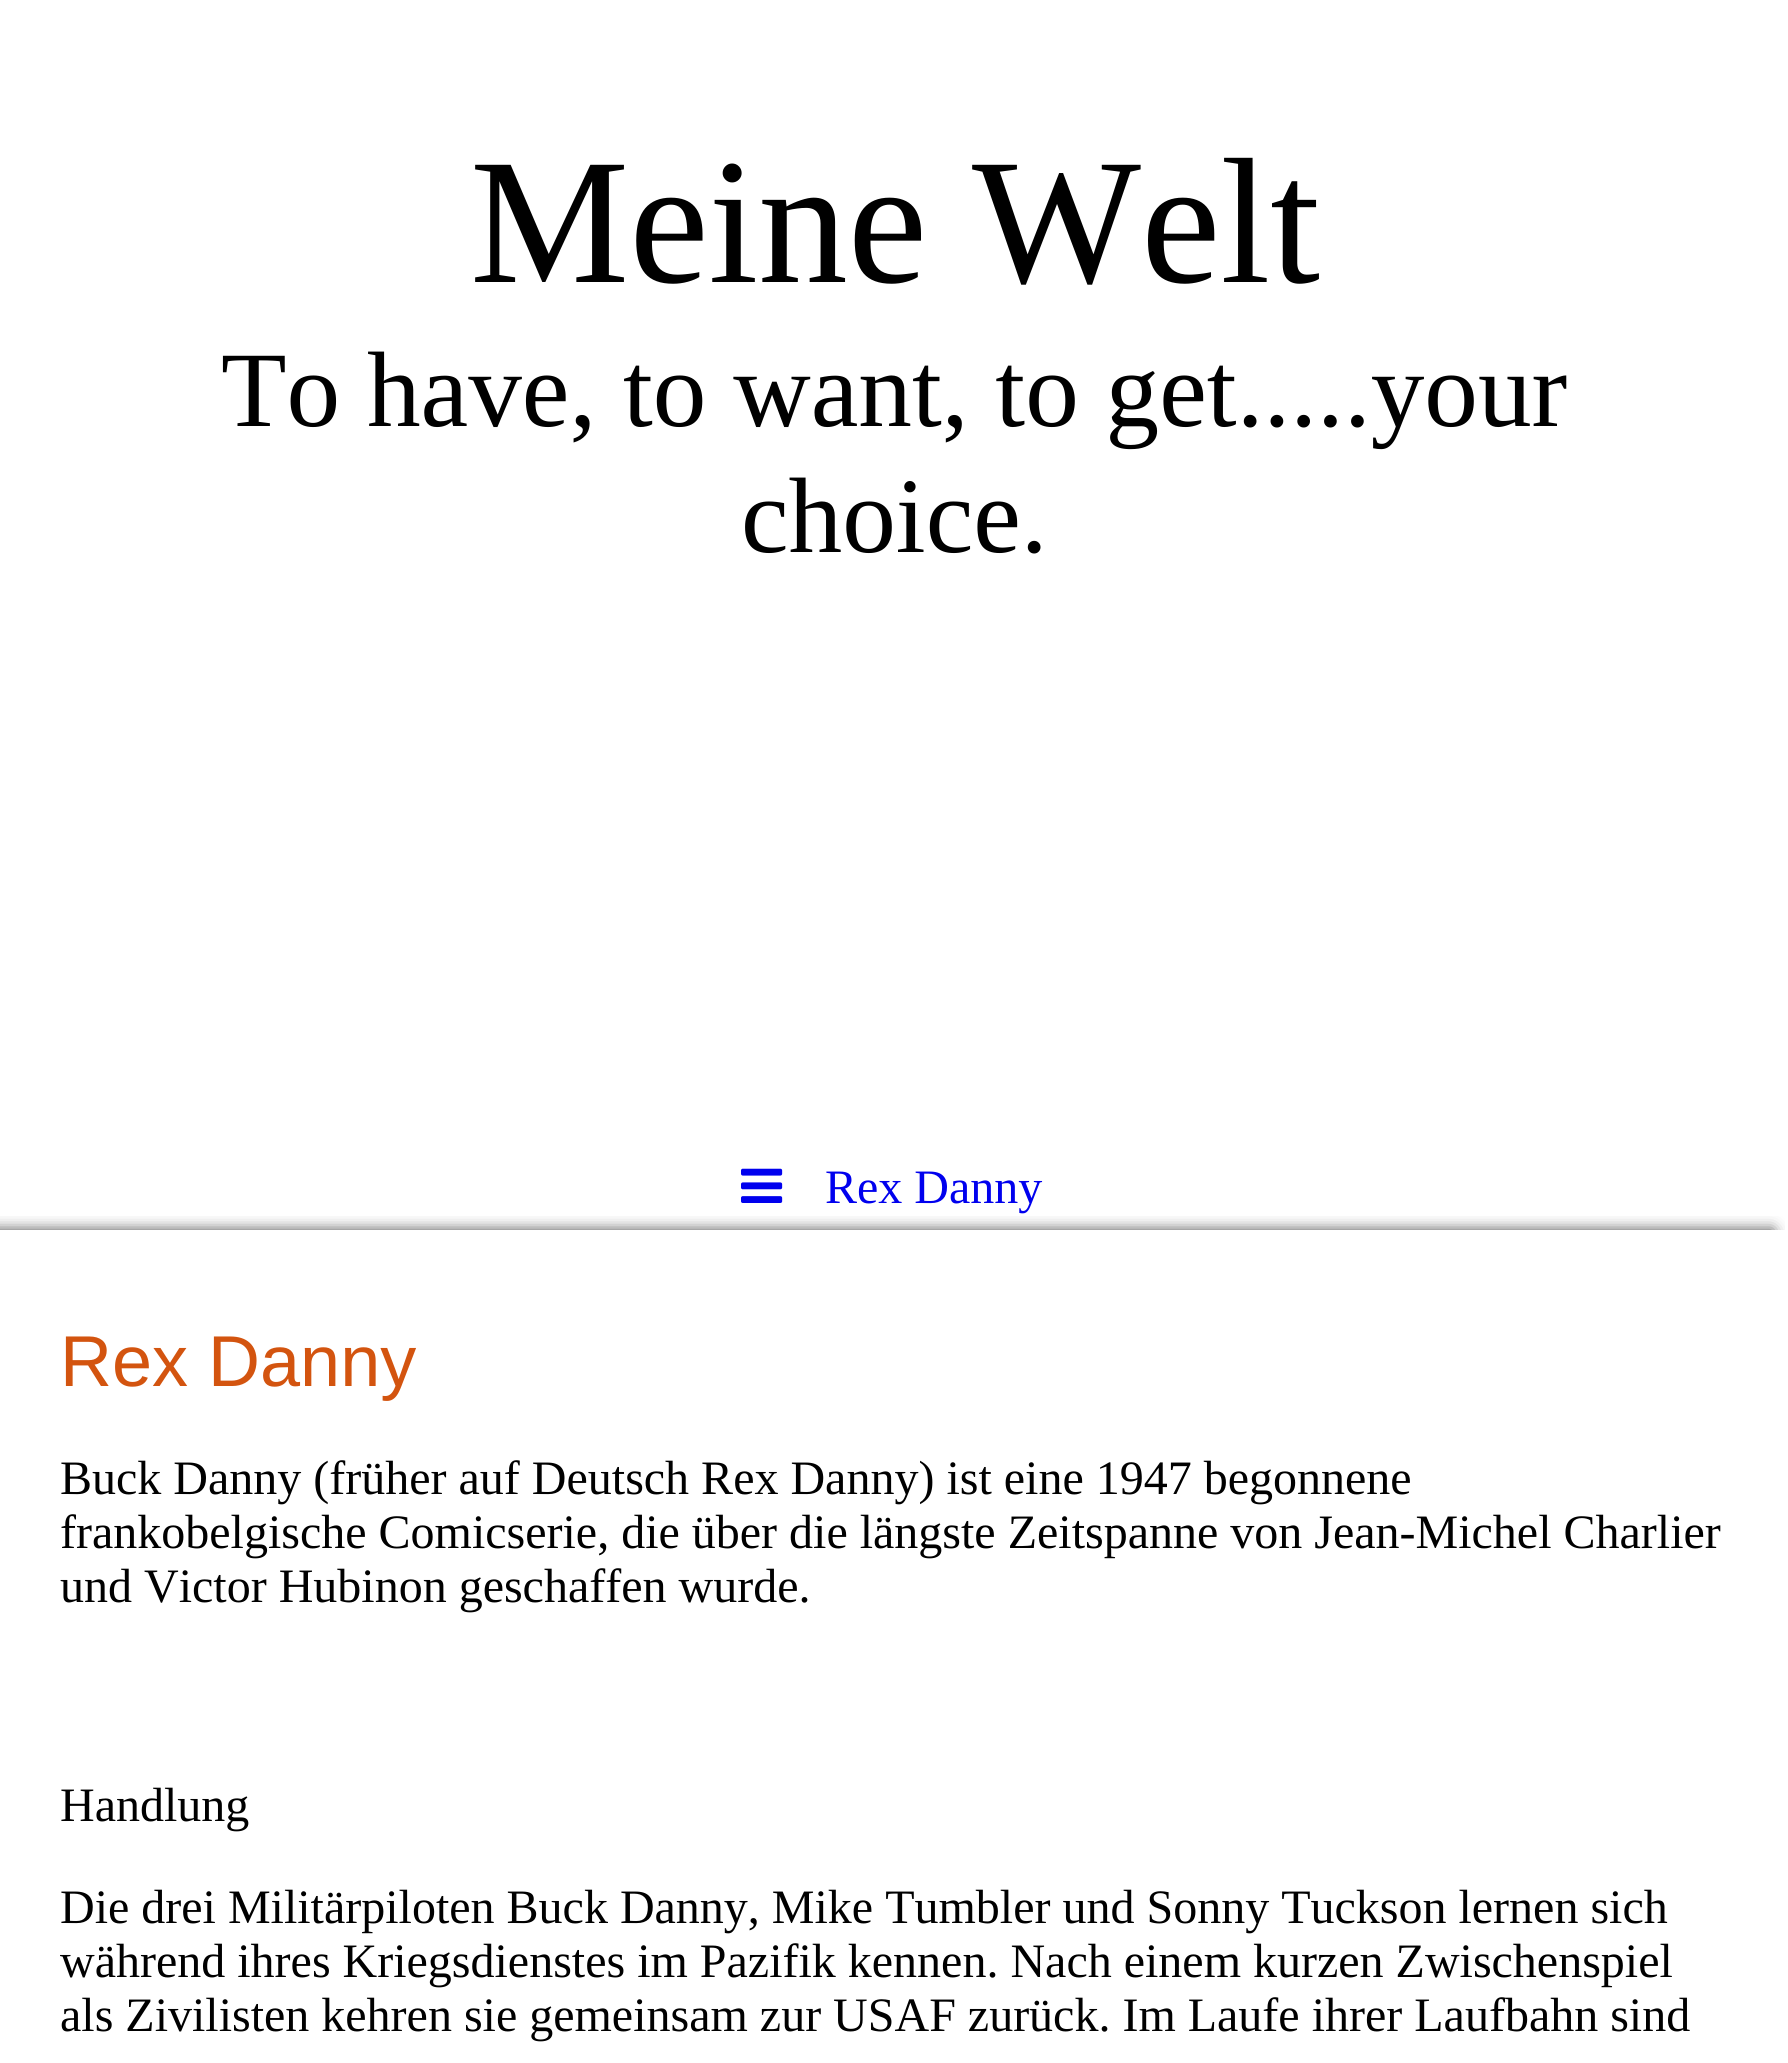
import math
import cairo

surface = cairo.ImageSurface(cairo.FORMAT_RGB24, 1788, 2063)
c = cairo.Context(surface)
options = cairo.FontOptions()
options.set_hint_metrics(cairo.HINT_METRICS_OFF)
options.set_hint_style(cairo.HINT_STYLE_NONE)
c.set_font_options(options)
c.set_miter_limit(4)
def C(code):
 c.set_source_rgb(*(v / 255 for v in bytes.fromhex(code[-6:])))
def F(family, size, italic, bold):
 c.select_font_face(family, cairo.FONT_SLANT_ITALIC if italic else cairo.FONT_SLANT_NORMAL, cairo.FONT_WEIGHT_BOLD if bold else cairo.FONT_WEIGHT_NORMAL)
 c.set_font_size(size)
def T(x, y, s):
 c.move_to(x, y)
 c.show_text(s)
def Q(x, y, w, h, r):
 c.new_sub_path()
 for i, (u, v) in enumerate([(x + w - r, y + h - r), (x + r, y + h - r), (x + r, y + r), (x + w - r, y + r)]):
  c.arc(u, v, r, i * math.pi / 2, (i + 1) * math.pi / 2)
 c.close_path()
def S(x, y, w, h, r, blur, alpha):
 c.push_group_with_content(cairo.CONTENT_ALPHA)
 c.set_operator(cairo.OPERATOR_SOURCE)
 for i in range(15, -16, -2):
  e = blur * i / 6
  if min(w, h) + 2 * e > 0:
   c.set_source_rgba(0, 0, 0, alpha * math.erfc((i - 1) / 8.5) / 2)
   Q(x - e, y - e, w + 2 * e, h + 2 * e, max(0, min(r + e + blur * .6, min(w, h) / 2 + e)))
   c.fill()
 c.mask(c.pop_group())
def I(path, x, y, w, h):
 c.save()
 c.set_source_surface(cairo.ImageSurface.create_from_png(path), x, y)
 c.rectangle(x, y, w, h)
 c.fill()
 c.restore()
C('ffffff')
c.paint()
F('Liberation Serif',179,0,0)
C('000000')
T(470,282,'Meine Welt')
F('Liberation Serif',107.25,0,0)
T(221,426,'To have, to want, to get.....your')
T(741,552,'choice.')
I('1.png',741,1168,42,35)
c.save()
c.rectangle(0,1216,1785,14)
c.clip()
C('000000')
S(-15,1230,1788,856,0,7.5,.7)
c.restore()
F('Liberation Serif',48,0,0)
C('0000ee')
T(825,1203,'Rex Danny')
F('Liberation Sans',72,0,0)
C('d3540f')
T(60,1386,'Rex Danny')
F('Liberation Serif',48,0,0)
C('000000')
T(60,1494,'Buck Danny (früher auf Deutsch Rex Danny) ist eine 1947 begonnene')
T(60,1548,'frankobelgische Comicserie, die über die längste Zeitspanne von Jean-Michel Charlier')
T(60,1602,'und Victor Hubinon geschaffen wurde.')
T(60,1821,'Handlung')
T(60,1923,'Die drei Militärpiloten Buck Danny, Mike Tumbler und Sonny Tuckson lernen sich')
T(60,1977,'während ihres Kriegsdienstes im Pazifik kennen. Nach einem kurzen Zwischenspiel')
T(60,2031,'als Zivilisten kehren sie gemeinsam zur USAF zurück. Im Laufe ihrer Laufbahn sind')
surface.write_to_png('o.png')
